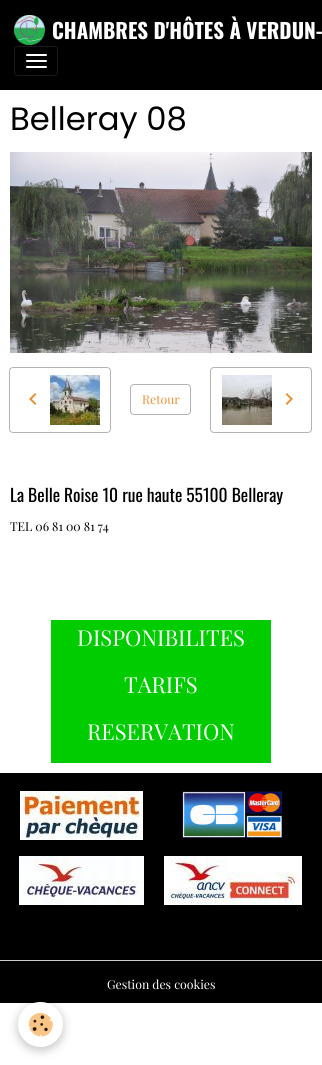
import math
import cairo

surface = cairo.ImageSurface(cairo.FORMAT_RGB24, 322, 1065)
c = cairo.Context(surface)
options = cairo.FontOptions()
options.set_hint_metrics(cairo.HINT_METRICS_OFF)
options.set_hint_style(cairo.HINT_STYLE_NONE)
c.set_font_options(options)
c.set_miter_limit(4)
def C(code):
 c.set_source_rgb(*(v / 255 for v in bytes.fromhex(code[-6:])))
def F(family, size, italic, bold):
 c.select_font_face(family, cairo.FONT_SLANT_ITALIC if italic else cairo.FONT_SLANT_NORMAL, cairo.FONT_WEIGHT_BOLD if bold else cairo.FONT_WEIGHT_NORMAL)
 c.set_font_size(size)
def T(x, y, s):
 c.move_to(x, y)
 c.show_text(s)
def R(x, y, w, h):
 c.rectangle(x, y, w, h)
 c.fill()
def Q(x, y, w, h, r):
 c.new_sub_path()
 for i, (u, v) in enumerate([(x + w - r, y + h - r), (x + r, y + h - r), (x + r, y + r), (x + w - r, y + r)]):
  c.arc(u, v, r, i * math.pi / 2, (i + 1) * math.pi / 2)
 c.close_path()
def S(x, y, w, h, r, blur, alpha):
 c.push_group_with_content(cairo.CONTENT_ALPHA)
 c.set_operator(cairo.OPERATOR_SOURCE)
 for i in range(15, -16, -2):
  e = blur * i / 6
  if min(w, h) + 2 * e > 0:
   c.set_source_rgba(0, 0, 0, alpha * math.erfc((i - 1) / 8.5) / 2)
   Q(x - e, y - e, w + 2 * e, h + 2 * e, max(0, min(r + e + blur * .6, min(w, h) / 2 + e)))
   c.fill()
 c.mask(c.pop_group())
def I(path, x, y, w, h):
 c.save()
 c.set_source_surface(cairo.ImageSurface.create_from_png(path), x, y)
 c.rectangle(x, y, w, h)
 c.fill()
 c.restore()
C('ffffff')
c.paint()
C('000000')
R(0,0,322,90)
I('1.png',14,15,31,30)
F('Oswald',21,0,1)
C('ffffff')
T(52,39,'CHAMBRES D\'HÔTES À VERDUN-')
Q(14.5,46.5,43,29,3.5)
C('1a1a1a')
c.set_line_width(1)
c.stroke()
C('ffffff')
Q(26,54,21,2,1)
c.fill()
Q(26,60,21,2,1)
c.fill()
Q(26,66,21,2,1)
c.fill()
F('Poppins',32.25,0,0)
C('000000')
T(10,130,'Belleray 08')
I('2.png',10,152,302,201)
Q(9.5,367.5,101,65,3.5)
C('b3b3b3')
c.stroke()
I('3.png',29,393,8,12)
I('4.png',50,375,50,50)
Q(130.5,384.5,60,30,3.5)
c.stroke()
F('Playfair Display',12.25,0,0)
C('e69138')
T(142,404,'Retour')
Q(210.5,367.5,101,65,3.5)
C('b3b3b3')
c.stroke()
I('5.png',222,375,50,50)
I('6.png',285,393,8,12)
F('Oswald',17.5,0,0)
C('000000')
T(10,502,'La Belle Roise 10 rue haute 55100 Belleray')
F('Playfair Display',12.25,0,0)
T(10,531,'TEL 06 81 00 81 74')
C('00cc00')
R(51,620,220,143)
F('Playfair Display',22,0,0)
C('ffffff')
T(77,646,'DISPONIBILITES')
T(124,693,'TARIFS')
T(87,740,'RESERVATION')
C('000000')
R(0,773,322,230)
I('7.png',20,791,123,49)
I('8.png',182,791,101,49)
I('9.png',19,856,125,49)
I('10.png',164,856,138,49)
C('cccccc')
R(0,960,322,1)
F('Playfair Display',12.25,0,0)
C('ffffff')
T(107,989,'Gestion des cookies')
C('000000')
S(18,1005,45,45,22.5,5,.24)
C('ffffff')
c.arc(40.5,1024.5,22.5,0,2 * math.pi)
c.fill()
I('11.png',28,1012,25,25)
surface.write_to_png('o.png')
